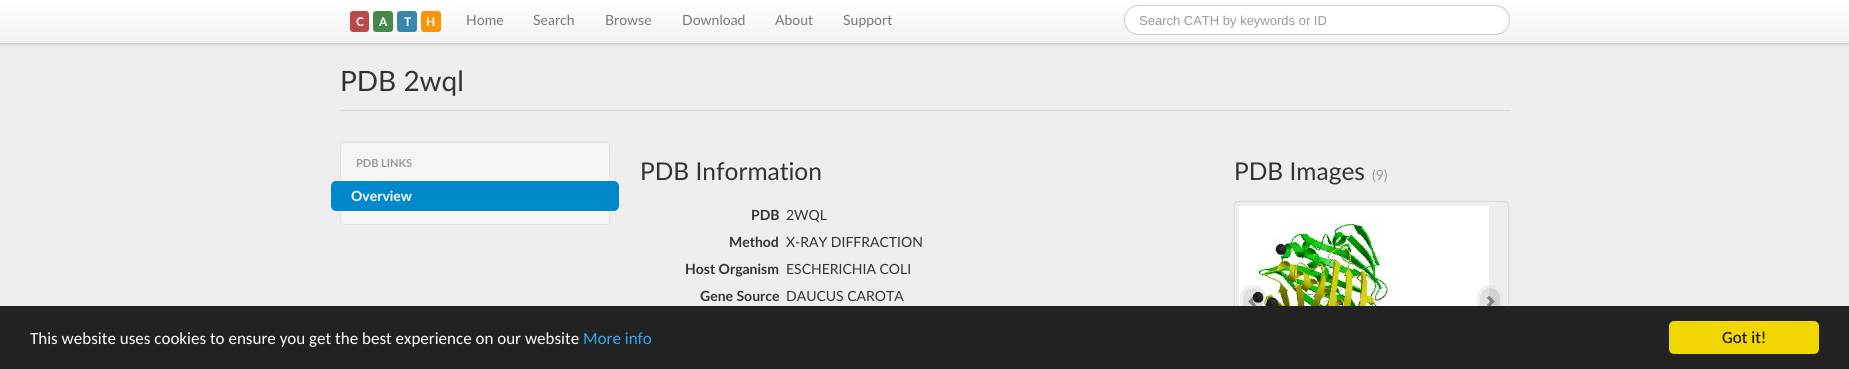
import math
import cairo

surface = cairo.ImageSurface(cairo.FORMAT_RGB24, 1849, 369)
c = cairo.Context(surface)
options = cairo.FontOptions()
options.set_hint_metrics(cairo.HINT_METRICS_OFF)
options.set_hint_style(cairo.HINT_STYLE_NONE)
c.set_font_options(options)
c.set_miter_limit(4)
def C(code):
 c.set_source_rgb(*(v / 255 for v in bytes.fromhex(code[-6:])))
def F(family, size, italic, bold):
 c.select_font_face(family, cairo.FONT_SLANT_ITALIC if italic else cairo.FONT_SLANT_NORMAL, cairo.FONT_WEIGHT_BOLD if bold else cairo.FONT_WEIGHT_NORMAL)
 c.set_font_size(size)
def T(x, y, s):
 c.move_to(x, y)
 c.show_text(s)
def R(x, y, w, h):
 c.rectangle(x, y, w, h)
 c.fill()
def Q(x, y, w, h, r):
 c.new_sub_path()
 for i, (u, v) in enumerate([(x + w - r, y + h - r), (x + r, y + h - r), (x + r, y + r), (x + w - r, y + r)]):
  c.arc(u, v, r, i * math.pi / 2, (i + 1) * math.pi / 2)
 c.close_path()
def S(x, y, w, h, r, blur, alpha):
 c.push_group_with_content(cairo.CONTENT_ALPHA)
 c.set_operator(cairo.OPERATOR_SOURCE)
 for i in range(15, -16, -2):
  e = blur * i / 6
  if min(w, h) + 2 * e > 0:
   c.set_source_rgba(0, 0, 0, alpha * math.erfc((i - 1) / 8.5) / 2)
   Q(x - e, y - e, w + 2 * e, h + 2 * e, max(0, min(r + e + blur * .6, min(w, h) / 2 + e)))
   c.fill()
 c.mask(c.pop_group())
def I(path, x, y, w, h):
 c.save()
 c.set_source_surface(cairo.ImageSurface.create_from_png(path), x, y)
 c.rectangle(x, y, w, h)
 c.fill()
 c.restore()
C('eeeeee')
c.paint()
C('000000')
S(0,1,1849,44,0,1.5,.1)
gradient = cairo.LinearGradient(925,0,925,43)
gradient.add_color_stop_rgba(0,1,1,1,1)
gradient.add_color_stop_rgba(1,0.949,0.949,0.949,1)
c.set_source(gradient)
R(0,0,1849,43)
C('d4d4d4')
R(0,43,1849,1)
C('b94a48')
Q(350,11,19,21,3)
c.fill()
F('Lato',12,0,1)
C('ffffff')
T(356,26,'C')
C('468847')
Q(373,11,20,21,3)
c.fill()
C('ffffff')
T(379,26,'A')
C('3a87ad')
Q(397,11,20,21,3)
c.fill()
C('ffffff')
T(404,26,'T')
C('f89406')
Q(421,11,20,21,3)
c.fill()
C('ffffff')
T(426,26,'H')
F('Lato',14,0,0)
C('777777')
T(466,25,'Home')
T(533,25,'Search')
T(605,25,'Browse')
T(682,25,'Download')
T(775,25,'About')
T(843,25,'Support')
C('ffffff')
Q(1124.5,5.5,385,29,14.5)
c.fill_preserve()
C('cccccc')
c.set_line_width(1)
c.stroke()
F('Liberation Sans',13,0,0)
C('999999')
T(1139,25,'Search CATH by keywords or ID')
C('dddddd')
R(340,110,1170,1)
F('Lato',28,0,0)
C('333333')
T(340,91,'PDB 2wql')
C('f5f5f5')
Q(340,141,270,84,4)
c.fill()
C('e9e9e9')
c.new_path()
c.move_to(344,143)
c.line_to(606,143)
c.curve_to(608,143,609,144,609,146)
c.curve_to(609,144,608,142,606,142)
c.line_to(344,142)
c.curve_to(342,142,341,144,341,146)
c.curve_to(341,144,342,143,344,143)
c.close_path()
c.fill()
Q(340.5,141.5,269,83,3.5)
C('e3e3e3')
c.stroke()
F('Lato',11,0,1)
C('999999')
T(356,167,'PDB LINKS')
C('0088cc')
Q(331,181,288,30,5)
c.fill()
F('Lato',14,0,1)
C('ffffff')
T(351,201,'Overview')
F('Lato',24.5,0,0)
C('333333')
T(640,180,'PDB Information')
F('Lato',14,0,1)
T(751,220,'PDB')
F('Lato',14,0,0)
T(786,220,'2WQL')
F('Lato',14,0,1)
T(729,247,'Method')
F('Lato',14,0,0)
T(786,247,'X-RAY DIFFRACTION')
F('Lato',14,0,1)
T(685,274,'Host Organism')
F('Lato',14,0,0)
T(786,274,'ESCHERICHIA COLI')
F('Lato',14,0,1)
T(700,301,'Gene Source')
F('Lato',14,0,0)
T(786,301,'DAUCUS CAROTA')
F('Lato',24.5,0,0)
T(1234,180,'PDB Images')
F('Lato',14,0,0)
C('999999')
T(1372,180,'(9)')
Q(1234.5,201.5,274,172,3.5)
C('dddddd')
c.stroke()
I('1.png',1239,206,250,100)
c.set_source_rgba(0,0,0,0.12)
Q(1240,285,26,31,13)
c.fill()
Q(1241.5,286.5,23,28,11.5)
c.set_source_rgba(1,1,1,0.5)
c.set_line_width(3)
c.stroke()
I('2.png',1248,296,8,10)
c.set_source_rgba(0,0,0,0.12)
Q(1477,285,26,31,13)
c.fill()
Q(1478.5,286.5,23,28,11.5)
c.set_source_rgba(1,1,1,0.5)
c.stroke()
I('3.png',1487,296,8,10)
C('222222')
R(0,306,1849,63)
F('Carlito',17,0,0)
C('ffffff')
T(30,344,'This website uses cookies to ensure you get the best experience on our website')
C('31a8f0')
T(583,344,'More info')
C('f1d600')
Q(1669,321,150,33,5)
c.fill()
C('000000')
T(1722,343,'Got it!')
surface.write_to_png('o.png')
